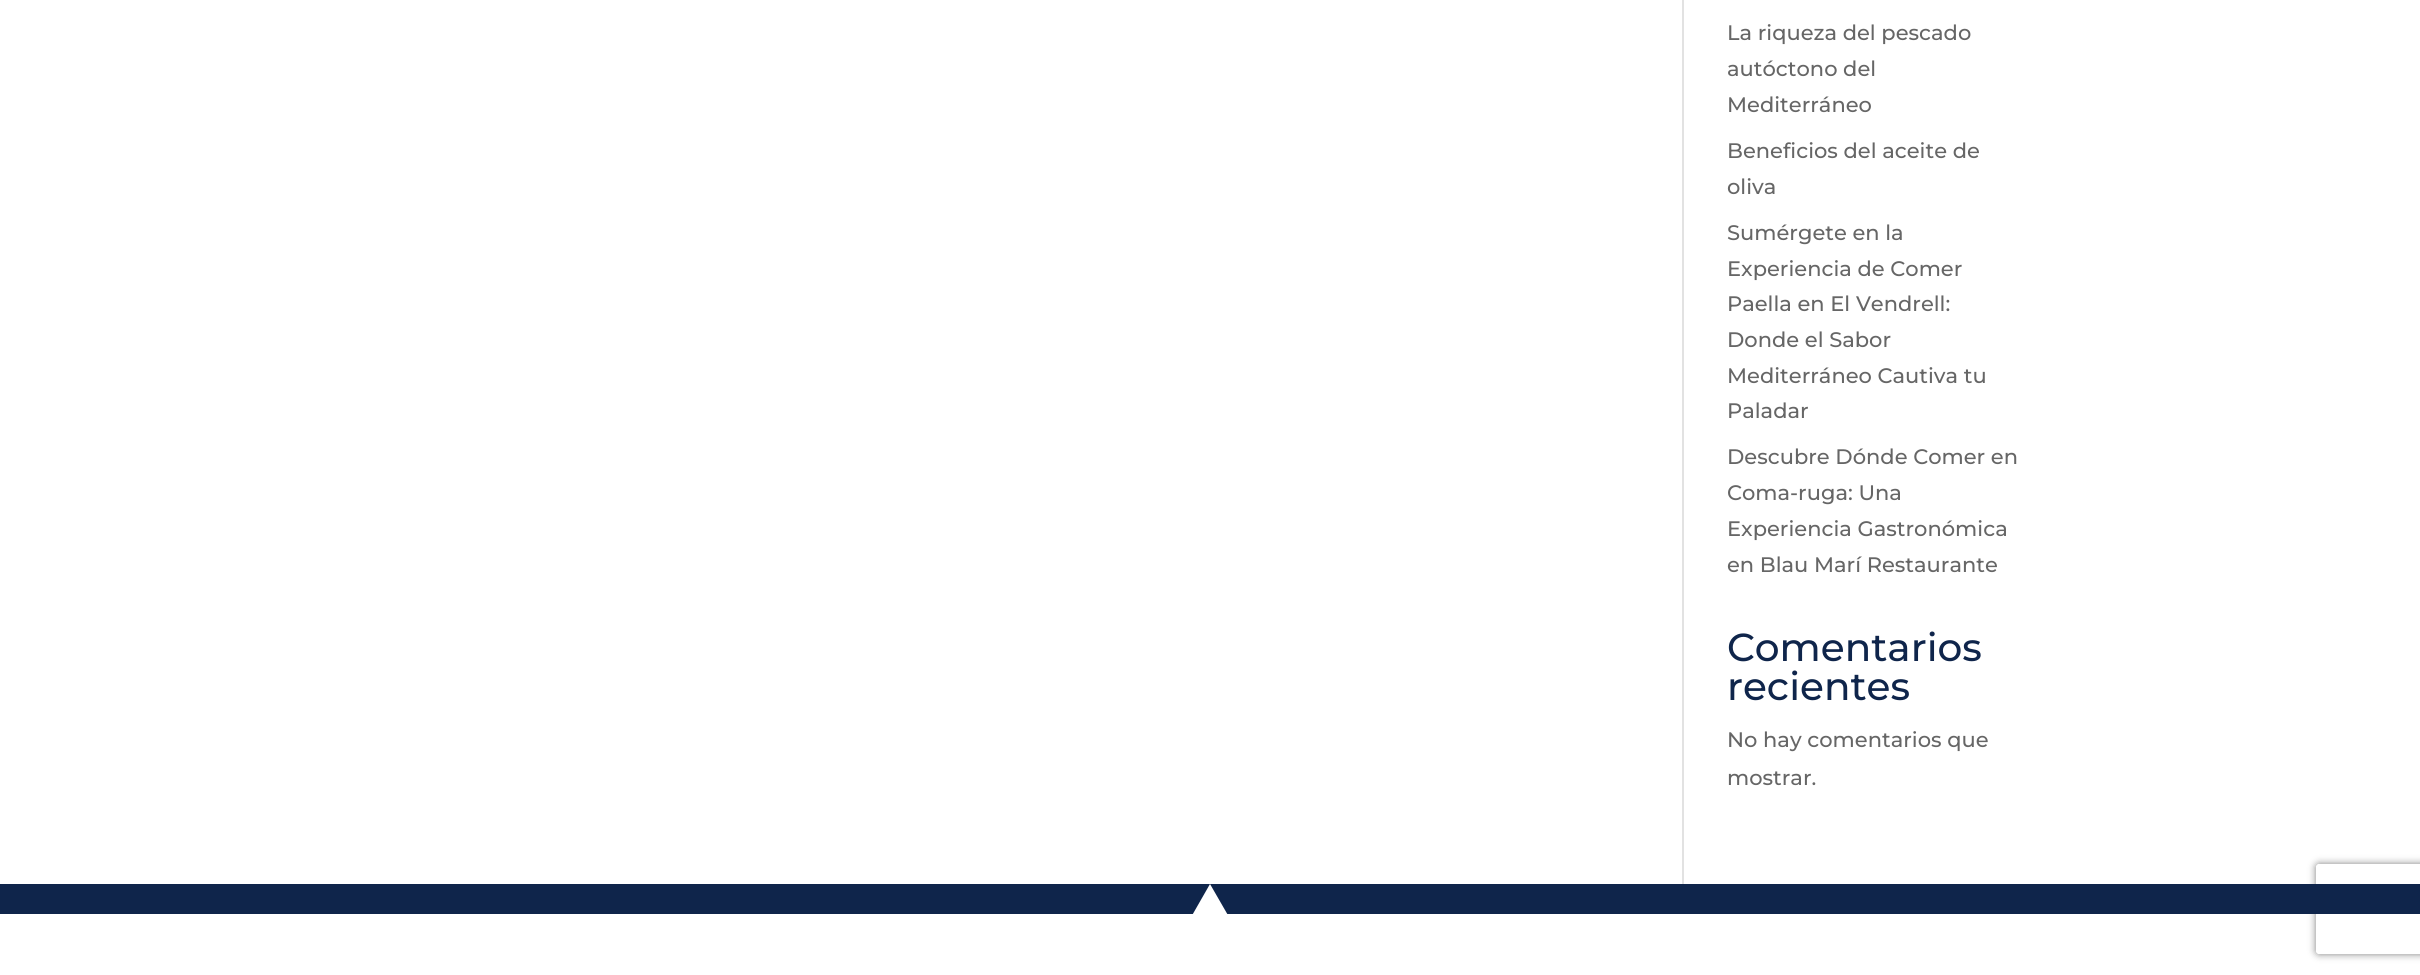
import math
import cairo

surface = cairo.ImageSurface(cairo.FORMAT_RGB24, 2420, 975)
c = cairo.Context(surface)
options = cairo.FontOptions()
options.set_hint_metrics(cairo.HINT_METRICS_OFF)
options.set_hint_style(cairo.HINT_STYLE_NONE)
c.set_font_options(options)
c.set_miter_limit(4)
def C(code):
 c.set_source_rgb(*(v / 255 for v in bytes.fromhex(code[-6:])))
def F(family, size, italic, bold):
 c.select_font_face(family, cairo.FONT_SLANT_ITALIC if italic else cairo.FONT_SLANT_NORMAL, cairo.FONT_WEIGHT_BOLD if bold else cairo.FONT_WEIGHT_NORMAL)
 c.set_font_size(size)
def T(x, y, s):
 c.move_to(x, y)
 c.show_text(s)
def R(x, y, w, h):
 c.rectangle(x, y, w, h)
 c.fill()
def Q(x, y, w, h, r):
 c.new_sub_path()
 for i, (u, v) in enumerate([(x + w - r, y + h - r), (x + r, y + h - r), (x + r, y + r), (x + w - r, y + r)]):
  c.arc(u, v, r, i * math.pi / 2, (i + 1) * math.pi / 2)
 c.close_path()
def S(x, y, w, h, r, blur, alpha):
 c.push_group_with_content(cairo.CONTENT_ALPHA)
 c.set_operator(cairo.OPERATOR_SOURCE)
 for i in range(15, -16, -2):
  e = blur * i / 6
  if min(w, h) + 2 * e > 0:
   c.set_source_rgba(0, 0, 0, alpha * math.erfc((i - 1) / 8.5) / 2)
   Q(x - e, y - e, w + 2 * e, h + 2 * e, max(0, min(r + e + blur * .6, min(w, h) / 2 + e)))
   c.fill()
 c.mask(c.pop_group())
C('ffffff')
c.paint()
C('e2e2e2')
R(1682,0,2,884)
F('Montserrat Thin',21,0,0)
C('666666')
T(1727,40,'La riqueza del pescado')
T(1727,76,'autóctono del')
T(1727,112,'Mediterráneo')
T(1727,158,'Beneficios del aceite de')
T(1727,194,'oliva')
T(1727,240,'Sumérgete en la')
T(1727,276,'Experiencia de Comer')
T(1727,311,'Paella en El Vendrell:')
T(1727,347,'Donde el Sabor')
T(1727,383,'Mediterráneo Cautiva tu')
T(1727,418,'Paladar')
T(1727,464,'Descubre Dónde Comer en')
T(1727,500,'Coma-ruga: Una')
T(1727,536,'Experiencia Gastronómica')
T(1727,572,'en Blau Marí Restaurante')
F('Montserrat Thin',39,0,0)
C('0f254b')
T(1727,661,'Comentarios')
T(1727,700,'recientes')
F('Montserrat Thin',21,0,0)
C('666666')
T(1727,747,'No hay comentarios que')
T(1727,785,'mostrar.')
c.save()
c.set_fill_rule(cairo.FILL_RULE_EVEN_ODD)
c.new_path()
c.move_to(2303,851)
c.line_to(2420,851)
c.line_to(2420,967)
c.line_to(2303,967)
c.close_path()
c.move_to(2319,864)
c.line_to(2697,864)
c.curve_to(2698.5,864,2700,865.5,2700,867)
c.line_to(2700,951)
c.curve_to(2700,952.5,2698.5,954,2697,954)
c.line_to(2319,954)
c.curve_to(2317.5,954,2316,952.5,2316,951)
c.line_to(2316,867)
c.curve_to(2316,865.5,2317.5,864,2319,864)
c.close_path()
c.clip()
C('808080')
S(2316,864,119,90,3,4,1)
c.restore()
c.save()
c.rectangle(0,884,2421,30)
c.clip()
C('0f254b')
c.new_path()
c.move_to(1362,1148)
c.line_to(1210,884)
c.line_to(1059,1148)
c.line_to(0,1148)
c.line_to(0,884)
c.line_to(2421,884)
c.line_to(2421,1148)
c.close_path()
c.fill()
c.restore()
surface.write_to_png('o.png')
